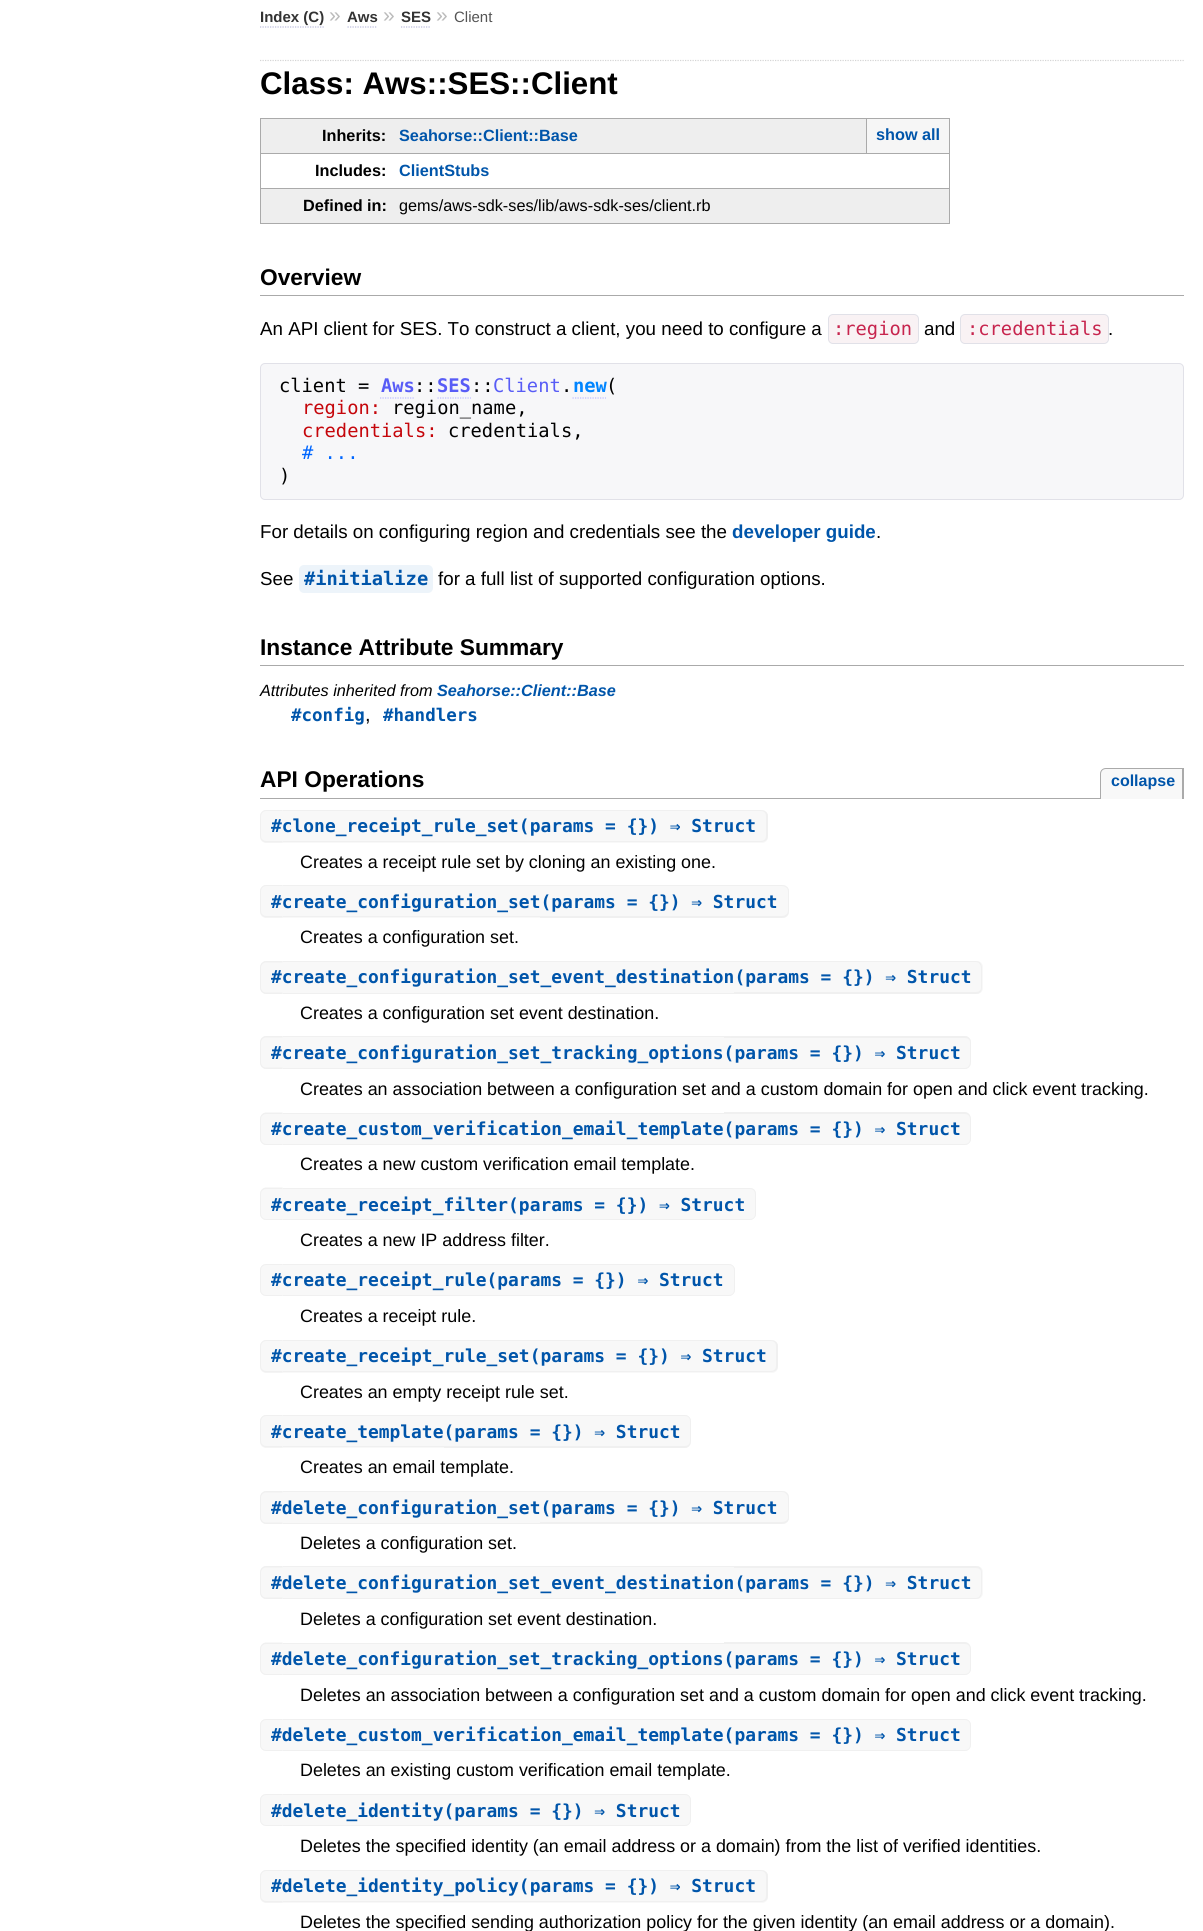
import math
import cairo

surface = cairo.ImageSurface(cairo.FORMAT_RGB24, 1203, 1931)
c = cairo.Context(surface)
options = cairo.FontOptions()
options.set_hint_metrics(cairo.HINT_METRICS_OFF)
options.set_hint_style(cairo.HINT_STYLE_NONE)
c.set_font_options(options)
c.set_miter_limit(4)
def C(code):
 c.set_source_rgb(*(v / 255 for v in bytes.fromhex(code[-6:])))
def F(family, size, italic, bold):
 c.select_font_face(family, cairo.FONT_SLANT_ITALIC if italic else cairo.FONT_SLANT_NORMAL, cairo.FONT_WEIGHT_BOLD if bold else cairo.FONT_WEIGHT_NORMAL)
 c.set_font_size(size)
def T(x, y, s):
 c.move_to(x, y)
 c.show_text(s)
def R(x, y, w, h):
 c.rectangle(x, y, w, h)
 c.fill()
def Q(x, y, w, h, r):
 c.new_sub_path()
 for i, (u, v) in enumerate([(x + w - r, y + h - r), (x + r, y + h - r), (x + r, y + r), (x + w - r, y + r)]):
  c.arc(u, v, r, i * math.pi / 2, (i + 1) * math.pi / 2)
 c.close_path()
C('ffffff')
c.paint()
F('Liberation Sans',15,0,1)
C('333333')
T(260,22,'Index (C)')
c.new_path()
c.move_to(260,27)
c.line_to(324,27)
C('bbbbdd')
c.set_line_width(1.2)
c.set_dash([1.25,1.25])
c.stroke()
F('Liberation Sans',21,0,0)
C('bbbbbb')
T(329,22,'»')
F('Liberation Sans',15,0,1)
C('333333')
T(347,22,'Aws')
c.new_path()
c.move_to(347.5,27)
c.line_to(377.5,27)
C('bbbbdd')
c.stroke()
F('Liberation Sans',21,0,0)
C('bbbbbb')
T(383,22,'»')
F('Liberation Sans',15,0,1)
C('333333')
T(401,22,'SES')
c.new_path()
c.move_to(401,27)
c.line_to(430,27)
C('bbbbdd')
c.stroke()
F('Liberation Sans',21,0,0)
C('bbbbbb')
T(436,22,'»')
F('Liberation Sans',15,0,0)
C('555555')
T(454,22,'Client')
c.new_path()
c.move_to(260,60.5)
c.line_to(1184,60.5)
C('d5d5d5')
c.stroke()
F('Liberation Sans',31.25,0,1)
C('000000')
T(260,94,'Class: Aws::SES::Client')
C('eeeeee')
R(261,119,605,34)
C('aaaaaa')
R(260,118,690,1)
R(260,118,1,35)
F('Liberation Sans',16.25,0,1)
C('000000')
T(322,141,'Inherits:')
C('aaaaaa')
R(260,153,690,1)
R(260,188,690,1)
R(949,118,1,106)
C('0055aa')
T(399,141,'Seahorse::Client::Base')
C('f6f6f6')
R(867,119,82,34)
C('aaaaaa')
R(866,119,1,34)
C('0055aa')
T(876,140,'show all')
C('aaaaaa')
R(260,153,1,35)
C('000000')
T(315,176,'Includes:')
C('0055aa')
T(399,176,'ClientStubs')
C('eeeeee')
R(261,189,688,34)
C('aaaaaa')
R(260,223,139,1)
R(260,188,1,36)
C('000000')
T(303,211,'Defined in:')
C('aaaaaa')
R(399,223,551,1)
F('Liberation Sans',16.25,0,0)
C('000000')
T(399,211,'gems/aws-sdk-ses/lib/aws-sdk-ses/client.rb')
C('aaaaaa')
R(260,295,924,1)
F('Liberation Sans',22.75,0,1)
C('000000')
T(260,285,'Overview')
F('Liberation Sans',18.75,0,0)
T(260,335,'An API client for SES. To construct a client, you need to configure a')
C('f9f2f4')
Q(828.5,314.5,90,29,4.5)
c.fill_preserve()
C('e1e1e8')
c.set_line_width(1)
c.set_dash([])
c.stroke()
F('DejaVu Sans Mono',18.75,0,0)
C('c7254e')
T(833,335,':region')
F('Liberation Sans',18.75,0,0)
C('000000')
T(924,335,'and')
C('f9f2f4')
Q(960.5,314.5,148,29,4.5)
c.fill_preserve()
C('e1e1e8')
c.stroke()
F('DejaVu Sans Mono',18.75,0,0)
C('c7254e')
T(967,335,':credentials')
F('Liberation Sans',18.75,0,0)
C('000000')
T(1108,335,'.')
C('f7f7f9')
Q(260.5,363.5,923,136,4.5)
c.fill_preserve()
C('e1e1e8')
c.stroke()
F('DejaVu Sans Mono',18.75,0,0)
C('000000')
T(279,392,'client =')
F('DejaVu Sans Mono',18.75,0,1)
C('585cf6')
T(381,392,'Aws')
F('DejaVu Sans Mono',18.75,0,0)
C('000000')
T(414,392,'::')
F('DejaVu Sans Mono',18.75,0,1)
C('585cf6')
T(437,392,'SES')
F('DejaVu Sans Mono',18.75,0,0)
C('000000')
T(471,392,'::')
C('585cf6')
T(493,392,'Client')
C('000000')
T(561,392,'.')
c.new_path()
c.move_to(572.5,398)
c.line_to(606,398)
C('bbbbff')
c.set_line_width(1.2)
c.set_dash([1.25,1.25])
c.stroke()
F('DejaVu Sans Mono',18.75,0,1)
C('0085ff')
T(573,392,'new')
F('DejaVu Sans Mono',18.75,0,0)
C('000000')
T(606,392,'(')
C('c5060b')
T(302,414,'region:')
C('000000')
T(392,414,'region_name,')
c.new_path()
c.move_to(380,398)
c.line_to(415,398)
C('bbbbff')
c.stroke()
c.new_path()
c.move_to(437.5,398)
c.line_to(471,398)
c.stroke()
C('c5060b')
T(302,437,'credentials:')
C('000000')
T(448,437,'credentials,')
C('0066ff')
T(302,459,'# ...')
C('000000')
T(279,482,')')
F('Liberation Sans',18.75,0,0)
T(260,538,'For details on configuring region and credentials see the')
F('Liberation Sans',18.75,0,1)
C('0055aa')
T(732,538,'developer guide')
F('Liberation Sans',18.75,0,0)
C('000000')
T(876,538,'.')
T(260,585,'See')
C('edf4fa')
Q(299,565,134,28,5)
c.fill()
F('DejaVu Sans Mono',18.75,0,1)
C('0055aa')
T(304,585,'#initialize')
F('Liberation Sans',18.75,0,0)
C('000000')
T(438,585,'for a full list of supported configuration options.')
C('aaaaaa')
R(260,665,924,1)
F('Liberation Sans',22.75,0,1)
C('000000')
T(260,655,'Instance Attribute Summary')
F('Liberation Sans',16.25,1,0)
T(260,696,'Attributes inherited from')
F('Liberation Sans',16.25,1,1)
C('0055aa')
T(437,696,'Seahorse::Client::Base')
F('DejaVu Sans Mono',17.5,0,1)
T(291,721,'#config')
F('Liberation Sans',20,0,0)
C('000000')
T(365,721,',')
F('DejaVu Sans Mono',17.5,0,1)
C('0055aa')
T(383,721,'#handlers')
C('aaaaaa')
R(260,798,840,1)
F('Liberation Sans',22.75,0,1)
C('000000')
T(260,787,'API Operations')
C('f8f8f8')
c.new_path()
c.move_to(1106,768)
c.line_to(1184,768)
c.line_to(1184,799)
c.line_to(1100,799)
c.line_to(1100,774)
c.curve_to(1100,770.5,1102.5,768,1106,768)
c.close_path()
c.fill()
C('aaaaaa')
c.set_fill_rule(cairo.FILL_RULE_EVEN_ODD)
c.new_path()
c.move_to(1106,768)
c.line_to(1184,768)
c.line_to(1184,799)
c.line_to(1100,799)
c.line_to(1100,774)
c.curve_to(1100,770,1103,768,1106,768)
c.close_path()
c.move_to(1106,769)
c.line_to(1182,769)
c.line_to(1182,799)
c.line_to(1101,799)
c.line_to(1101,774)
c.curve_to(1101,771,1103,769,1106,769)
c.close_path()
c.fill()
F('Liberation Sans',16,0,1)
C('0055aa')
T(1111,786,'collapse')
C('f8f8f8')
c.new_path()
c.move_to(266,810)
c.line_to(283,810)
c.line_to(283,843)
c.line_to(266,843)
c.curve_to(262.5,843,260,840.5,260,837)
c.line_to(260,816)
c.curve_to(260,812.5,262.5,810,266,810)
c.close_path()
c.fill()
C('f0f0f0')
c.new_path()
c.move_to(266,810)
c.line_to(282.5,810)
c.line_to(282.5,842.5)
c.line_to(266,842.5)
c.curve_to(263,842.5,260,839.5,260,836)
c.line_to(260,816)
c.curve_to(260,813,263,810,266,810)
c.close_path()
c.move_to(266,811)
c.line_to(282.5,811)
c.line_to(282.5,841)
c.line_to(266,841)
c.curve_to(263.5,841,261,839,261,836)
c.line_to(261,816)
c.curve_to(261,813.5,263.5,811,266,811)
c.close_path()
c.fill()
C('f8f8f8')
R(283,811,236,32)
c.new_path()
c.move_to(519,810)
c.line_to(762,810)
c.curve_to(765.5,810,768,812.5,768,816)
c.line_to(768,837)
c.curve_to(768,840.5,765.5,843,762,843)
c.line_to(519,843)
c.close_path()
c.fill()
C('f0f0f0')
c.new_path()
c.move_to(519,810)
c.line_to(761,810)
c.curve_to(765,810,768,813,768,816)
c.line_to(768,836)
c.curve_to(768,840,765,842,761,842)
c.line_to(519,842)
c.close_path()
c.move_to(519,811)
c.line_to(761,811)
c.curve_to(764,811,766,813,766,816)
c.line_to(766,836)
c.curve_to(766,839,764,841,761,841)
c.line_to(519,841)
c.close_path()
c.fill()
F('DejaVu Sans Mono',17.9,0,1)
C('0055aa')
T(271,832,'#clone_receipt_rule_set(params = {}) ⇒ Struct')
C('f0f0f0')
R(283,810,236,1)
R(283,841,236,1)
F('Liberation Sans',17.9,0,0)
C('000000')
T(300,868,'Creates a receipt rule set by cloning an existing one.')
C('f8f8f8')
c.new_path()
c.move_to(266,885)
c.line_to(283,885)
c.line_to(283,918)
c.line_to(266,918)
c.curve_to(262.5,918,260,915.5,260,912)
c.line_to(260,891)
c.curve_to(260,887.5,262.5,885,266,885)
c.close_path()
c.fill()
C('f0f0f0')
c.new_path()
c.move_to(266,885)
c.line_to(282.5,885)
c.line_to(282.5,917.5)
c.line_to(266,917.5)
c.curve_to(263,917.5,260,914.5,260,911)
c.line_to(260,891)
c.curve_to(260,888,263,885,266,885)
c.close_path()
c.move_to(266,886)
c.line_to(282.5,886)
c.line_to(282.5,916)
c.line_to(266,916)
c.curve_to(263.5,916,261,914,261,911)
c.line_to(261,891)
c.curve_to(261,888.5,263.5,886,266,886)
c.close_path()
c.fill()
C('f8f8f8')
R(283,886,257,32)
c.new_path()
c.move_to(540,885)
c.line_to(783,885)
c.curve_to(786.5,885,789,887.5,789,891)
c.line_to(789,912)
c.curve_to(789,915.5,786.5,918,783,918)
c.line_to(540,918)
c.close_path()
c.fill()
C('f0f0f0')
c.new_path()
c.move_to(540,885)
c.line_to(782,885)
c.curve_to(786,885,789,888,789,891)
c.line_to(789,911)
c.curve_to(789,915,786,918,782,918)
c.line_to(540,918)
c.close_path()
c.move_to(540,886)
c.line_to(782,886)
c.curve_to(785,886,788,888,788,891)
c.line_to(788,911)
c.curve_to(788,914,785,916,782,916)
c.line_to(540,916)
c.close_path()
c.fill()
F('DejaVu Sans Mono',17.9,0,1)
C('0055aa')
T(271,908,'#create_configuration_set(params = {}) ⇒ Struct')
C('f0f0f0')
R(283,885,257,1)
R(283,916,257,1)
F('Liberation Sans',17.9,0,0)
C('000000')
T(300,943,'Creates a configuration set.')
C('f8f8f8')
c.new_path()
c.move_to(266,961)
c.line_to(283,961)
c.line_to(283,994)
c.line_to(266,994)
c.curve_to(262.5,994,260,991.5,260,988)
c.line_to(260,967)
c.curve_to(260,963.5,262.5,961,266,961)
c.close_path()
c.fill()
C('f0f0f0')
c.new_path()
c.move_to(266,961)
c.line_to(282.5,961)
c.line_to(282.5,994)
c.line_to(266,994)
c.curve_to(263,994,260,991,260,987.5)
c.line_to(260,967.5)
c.curve_to(260,964,263,961,266,961)
c.close_path()
c.move_to(266,962.5)
c.line_to(282.5,962.5)
c.line_to(282.5,992.5)
c.line_to(266,992.5)
c.curve_to(263.5,992.5,261,990.5,261,987.5)
c.line_to(261,967.5)
c.curve_to(261,964.5,263.5,962.5,266,962.5)
c.close_path()
c.fill()
C('f8f8f8')
R(283,962,451,31)
c.new_path()
c.move_to(734,961)
c.line_to(977,961)
c.curve_to(980.5,961,983,963.5,983,967)
c.line_to(983,988)
c.curve_to(983,991.5,980.5,994,977,994)
c.line_to(734,994)
c.close_path()
c.fill()
C('f0f0f0')
c.new_path()
c.move_to(734,961)
c.line_to(976,961)
c.curve_to(980,961,982,964,982,968)
c.line_to(982,988)
c.curve_to(982,991,980,994,976,994)
c.line_to(734,994)
c.close_path()
c.move_to(734,962)
c.line_to(976,962)
c.curve_to(979,962,981,965,981,968)
c.line_to(981,988)
c.curve_to(981,990,979,992,976,992)
c.line_to(734,992)
c.close_path()
c.fill()
F('DejaVu Sans Mono',17.9,0,1)
C('0055aa')
T(271,983,'#create_configuration_set_event_destination(params = {}) ⇒ Struct')
C('f0f0f0')
R(283,961,451,1)
R(283,993,451,1)
F('Liberation Sans',17.9,0,0)
C('000000')
T(300,1019,'Creates a configuration set event destination.')
C('f8f8f8')
c.new_path()
c.move_to(266,1036)
c.line_to(283,1036)
c.line_to(283,1069)
c.line_to(266,1069)
c.curve_to(262.5,1069,260,1066.5,260,1063)
c.line_to(260,1042)
c.curve_to(260,1038.5,262.5,1036,266,1036)
c.close_path()
c.fill()
C('f0f0f0')
c.new_path()
c.move_to(266,1036)
c.line_to(282.5,1036)
c.line_to(282.5,1069)
c.line_to(266,1069)
c.curve_to(263,1069,260,1066,260,1062.5)
c.line_to(260,1042.5)
c.curve_to(260,1039,263,1036,266,1036)
c.close_path()
c.move_to(266,1037.5)
c.line_to(282.5,1037.5)
c.line_to(282.5,1067.5)
c.line_to(266,1067.5)
c.curve_to(263.5,1067.5,261,1065.5,261,1062.5)
c.line_to(261,1042.5)
c.curve_to(261,1039.5,263.5,1037.5,266,1037.5)
c.close_path()
c.fill()
C('f8f8f8')
R(283,1037,441,31)
c.new_path()
c.move_to(724,1036)
c.line_to(965,1036)
c.curve_to(968.5,1036,971,1038.5,971,1042)
c.line_to(971,1063)
c.curve_to(971,1066.5,968.5,1069,965,1069)
c.line_to(724,1069)
c.close_path()
c.fill()
C('f0f0f0')
c.new_path()
c.move_to(724,1036)
c.line_to(965,1036)
c.curve_to(968,1036,971,1039,971,1042)
c.line_to(971,1062)
c.curve_to(971,1066,968,1069,965,1069)
c.line_to(724,1069)
c.close_path()
c.move_to(724,1038)
c.line_to(965,1038)
c.curve_to(968,1038,970,1040,970,1042)
c.line_to(970,1062)
c.curve_to(970,1065,968,1068,965,1068)
c.line_to(724,1068)
c.close_path()
c.fill()
F('DejaVu Sans Mono',17.9,0,1)
C('0055aa')
T(271,1059,'#create_configuration_set_tracking_options(params = {}) ⇒ Struct')
C('f0f0f0')
R(283,1036,441,1)
R(283,1068,441,1)
F('Liberation Sans',17.9,0,0)
C('000000')
T(300,1095,'Creates an association between a configuration set and a custom domain for open and click event tracking.')
C('f8f8f8')
c.new_path()
c.move_to(266,1113)
c.line_to(283,1113)
c.line_to(283,1145)
c.line_to(266,1145)
c.curve_to(262.5,1145,260,1142.5,260,1139)
c.line_to(260,1119)
c.curve_to(260,1115.5,262.5,1113,266,1113)
c.close_path()
c.fill()
C('f0f0f0')
c.new_path()
c.move_to(266,1112.5)
c.line_to(282.5,1112.5)
c.line_to(282.5,1145)
c.line_to(266,1145)
c.curve_to(263,1145,260,1142,260,1139)
c.line_to(260,1119)
c.curve_to(260,1115.5,263,1112.5,266,1112.5)
c.close_path()
c.move_to(266,1114)
c.line_to(282.5,1114)
c.line_to(282.5,1144)
c.line_to(266,1144)
c.curve_to(263.5,1144,261,1141.5,261,1139)
c.line_to(261,1119)
c.curve_to(261,1116,263.5,1114,266,1114)
c.close_path()
c.fill()
C('f8f8f8')
R(283,1114,441,30)
c.new_path()
c.move_to(724,1113)
c.line_to(965,1113)
c.curve_to(968.5,1113,971,1115.5,971,1119)
c.line_to(971,1139)
c.curve_to(971,1142.5,968.5,1145,965,1145)
c.line_to(724,1145)
c.close_path()
c.fill()
C('f0f0f0')
c.new_path()
c.move_to(724,1112)
c.line_to(965,1112)
c.curve_to(968,1112,971,1115,971,1119)
c.line_to(971,1139)
c.curve_to(971,1142,968,1145,965,1145)
c.line_to(724,1145)
c.close_path()
c.move_to(724,1114)
c.line_to(965,1114)
c.curve_to(968,1114,970,1116,970,1119)
c.line_to(970,1139)
c.curve_to(970,1142,968,1144,965,1144)
c.line_to(724,1144)
c.close_path()
c.fill()
F('DejaVu Sans Mono',17.9,0,1)
C('0055aa')
T(271,1135,'#create_custom_verification_email_template(params = {}) ⇒ Struct')
C('f0f0f0')
R(283,1113,441,1)
R(283,1144,441,1)
F('Liberation Sans',17.9,0,0)
C('000000')
T(300,1170,'Creates a new custom verification email template.')
C('f8f8f8')
c.new_path()
c.move_to(266,1188)
c.line_to(283,1188)
c.line_to(283,1220)
c.line_to(266,1220)
c.curve_to(262.5,1220,260,1217.5,260,1214)
c.line_to(260,1194)
c.curve_to(260,1190.5,262.5,1188,266,1188)
c.close_path()
c.fill()
C('f0f0f0')
c.new_path()
c.move_to(266,1187.5)
c.line_to(282.5,1187.5)
c.line_to(282.5,1220)
c.line_to(266,1220)
c.curve_to(263,1220,260,1217,260,1214)
c.line_to(260,1194)
c.curve_to(260,1190.5,263,1187.5,266,1187.5)
c.close_path()
c.move_to(266,1189)
c.line_to(282.5,1189)
c.line_to(282.5,1219)
c.line_to(266,1219)
c.curve_to(263.5,1219,261,1216.5,261,1214)
c.line_to(261,1194)
c.curve_to(261,1191,263.5,1189,266,1189)
c.close_path()
c.fill()
C('f8f8f8')
R(283,1189,226,30)
c.new_path()
c.move_to(509,1188)
c.line_to(750,1188)
c.curve_to(753.5,1188,756,1190.5,756,1194)
c.line_to(756,1214)
c.curve_to(756,1217.5,753.5,1220,750,1220)
c.line_to(509,1220)
c.close_path()
c.fill()
C('f0f0f0')
c.new_path()
c.move_to(509,1188)
c.line_to(750,1188)
c.curve_to(753,1188,756,1190,756,1194)
c.line_to(756,1214)
c.curve_to(756,1217,753,1220,750,1220)
c.line_to(509,1220)
c.close_path()
c.move_to(509,1189)
c.line_to(750,1189)
c.curve_to(753,1189,755,1191,755,1194)
c.line_to(755,1214)
c.curve_to(755,1217,753,1219,750,1219)
c.line_to(509,1219)
c.close_path()
c.fill()
F('DejaVu Sans Mono',17.9,0,1)
C('0055aa')
T(271,1211,'#create_receipt_filter(params = {}) ⇒ Struct')
C('f0f0f0')
R(283,1188,226,1)
R(283,1219,226,1)
F('Liberation Sans',17.9,0,0)
C('000000')
T(300,1246,'Creates a new IP address filter.')
C('f8f8f8')
c.new_path()
c.move_to(266,1264)
c.line_to(283,1264)
c.line_to(283,1296)
c.line_to(266,1296)
c.curve_to(262.5,1296,260,1293.5,260,1290)
c.line_to(260,1270)
c.curve_to(260,1266.5,262.5,1264,266,1264)
c.close_path()
c.fill()
C('f0f0f0')
c.new_path()
c.move_to(266,1264)
c.line_to(282.5,1264)
c.line_to(282.5,1296)
c.line_to(266,1296)
c.curve_to(263,1296,260,1293.5,260,1290)
c.line_to(260,1270)
c.curve_to(260,1266.5,263,1264,266,1264)
c.close_path()
c.move_to(266,1265)
c.line_to(282.5,1265)
c.line_to(282.5,1295)
c.line_to(266,1295)
c.curve_to(263.5,1295,261,1293,261,1290)
c.line_to(261,1270)
c.curve_to(261,1267,263.5,1265,266,1265)
c.close_path()
c.fill()
C('f8f8f8')
R(283,1265,203,30)
c.new_path()
c.move_to(486,1264)
c.line_to(729,1264)
c.curve_to(732.5,1264,735,1266.5,735,1270)
c.line_to(735,1290)
c.curve_to(735,1293.5,732.5,1296,729,1296)
c.line_to(486,1296)
c.close_path()
c.fill()
C('f0f0f0')
c.new_path()
c.move_to(486,1264)
c.line_to(729,1264)
c.curve_to(732,1264,735,1267,735,1270)
c.line_to(735,1290)
c.curve_to(735,1293,732,1296,729,1296)
c.line_to(486,1296)
c.close_path()
c.move_to(486,1265)
c.line_to(729,1265)
c.curve_to(732,1265,734,1267,734,1270)
c.line_to(734,1290)
c.curve_to(734,1293,732,1295,729,1295)
c.line_to(486,1295)
c.close_path()
c.fill()
F('DejaVu Sans Mono',17.9,0,1)
C('0055aa')
T(271,1286,'#create_receipt_rule(params = {}) ⇒ Struct')
C('f0f0f0')
R(283,1264,203,1)
R(283,1295,203,1)
F('Liberation Sans',17.9,0,0)
C('000000')
T(300,1322,'Creates a receipt rule.')
C('f8f8f8')
c.new_path()
c.move_to(266,1340)
c.line_to(283,1340)
c.line_to(283,1373)
c.line_to(266,1373)
c.curve_to(262.5,1373,260,1370.5,260,1367)
c.line_to(260,1346)
c.curve_to(260,1342.5,262.5,1340,266,1340)
c.close_path()
c.fill()
C('f0f0f0')
c.new_path()
c.move_to(266,1340)
c.line_to(282.5,1340)
c.line_to(282.5,1372.5)
c.line_to(266,1372.5)
c.curve_to(263,1372.5,260,1369.5,260,1366)
c.line_to(260,1346)
c.curve_to(260,1343,263,1340,266,1340)
c.close_path()
c.move_to(266,1341)
c.line_to(282.5,1341)
c.line_to(282.5,1371)
c.line_to(266,1371)
c.curve_to(263.5,1371,261,1369,261,1366)
c.line_to(261,1346)
c.curve_to(261,1343.5,263.5,1341,266,1341)
c.close_path()
c.fill()
C('f8f8f8')
R(283,1341,247,32)
c.new_path()
c.move_to(530,1340)
c.line_to(772,1340)
c.curve_to(775.5,1340,778,1342.5,778,1346)
c.line_to(778,1367)
c.curve_to(778,1370.5,775.5,1373,772,1373)
c.line_to(530,1373)
c.close_path()
c.fill()
C('f0f0f0')
c.new_path()
c.move_to(530,1340)
c.line_to(771,1340)
c.curve_to(775,1340,778,1343,778,1346)
c.line_to(778,1366)
c.curve_to(778,1370,775,1372,771,1372)
c.line_to(530,1372)
c.close_path()
c.move_to(530,1341)
c.line_to(771,1341)
c.curve_to(774,1341,776,1343,776,1346)
c.line_to(776,1366)
c.curve_to(776,1369,774,1371,771,1371)
c.line_to(530,1371)
c.close_path()
c.fill()
F('DejaVu Sans Mono',17.9,0,1)
C('0055aa')
T(271,1362,'#create_receipt_rule_set(params = {}) ⇒ Struct')
C('f0f0f0')
R(283,1340,247,1)
R(283,1371,247,1)
F('Liberation Sans',17.9,0,0)
C('000000')
T(300,1398,'Creates an empty receipt rule set.')
C('f8f8f8')
c.new_path()
c.move_to(266,1415)
c.line_to(283,1415)
c.line_to(283,1448)
c.line_to(266,1448)
c.curve_to(262.5,1448,260,1445.5,260,1442)
c.line_to(260,1421)
c.curve_to(260,1417.5,262.5,1415,266,1415)
c.close_path()
c.fill()
C('f0f0f0')
c.new_path()
c.move_to(266,1415)
c.line_to(282.5,1415)
c.line_to(282.5,1447.5)
c.line_to(266,1447.5)
c.curve_to(263,1447.5,260,1444.5,260,1441)
c.line_to(260,1421)
c.curve_to(260,1418,263,1415,266,1415)
c.close_path()
c.move_to(266,1416)
c.line_to(282.5,1416)
c.line_to(282.5,1446)
c.line_to(266,1446)
c.curve_to(263.5,1446,261,1444,261,1441)
c.line_to(261,1421)
c.curve_to(261,1418.5,263.5,1416,266,1416)
c.close_path()
c.fill()
C('f8f8f8')
R(283,1416,161,32)
c.new_path()
c.move_to(444,1415)
c.line_to(685,1415)
c.curve_to(688.5,1415,691,1417.5,691,1421)
c.line_to(691,1442)
c.curve_to(691,1445.5,688.5,1448,685,1448)
c.line_to(444,1448)
c.close_path()
c.fill()
C('f0f0f0')
c.new_path()
c.move_to(444,1415)
c.line_to(685,1415)
c.curve_to(688,1415,691,1418,691,1421)
c.line_to(691,1441)
c.curve_to(691,1445,688,1448,685,1448)
c.line_to(444,1448)
c.close_path()
c.move_to(444,1416)
c.line_to(685,1416)
c.curve_to(688,1416,690,1418,690,1421)
c.line_to(690,1441)
c.curve_to(690,1444,688,1446,685,1446)
c.line_to(444,1446)
c.close_path()
c.fill()
F('DejaVu Sans Mono',17.9,0,1)
C('0055aa')
T(271,1438,'#create_template(params = {}) ⇒ Struct')
C('f0f0f0')
R(283,1415,161,1)
R(283,1446,161,1)
F('Liberation Sans',17.9,0,0)
C('000000')
T(300,1473,'Creates an email template.')
C('f8f8f8')
c.new_path()
c.move_to(266,1491)
c.line_to(283,1491)
c.line_to(283,1524)
c.line_to(266,1524)
c.curve_to(262.5,1524,260,1521.5,260,1518)
c.line_to(260,1497)
c.curve_to(260,1493.5,262.5,1491,266,1491)
c.close_path()
c.fill()
C('f0f0f0')
c.new_path()
c.move_to(266,1491)
c.line_to(282.5,1491)
c.line_to(282.5,1524)
c.line_to(266,1524)
c.curve_to(263,1524,260,1521,260,1517.5)
c.line_to(260,1497.5)
c.curve_to(260,1494,263,1491,266,1491)
c.close_path()
c.move_to(266,1492.5)
c.line_to(282.5,1492.5)
c.line_to(282.5,1522.5)
c.line_to(266,1522.5)
c.curve_to(263.5,1522.5,261,1520.5,261,1517.5)
c.line_to(261,1497.5)
c.curve_to(261,1494.5,263.5,1492.5,266,1492.5)
c.close_path()
c.fill()
C('f8f8f8')
R(283,1492,257,31)
c.new_path()
c.move_to(540,1491)
c.line_to(783,1491)
c.curve_to(786.5,1491,789,1493.5,789,1497)
c.line_to(789,1518)
c.curve_to(789,1521.5,786.5,1524,783,1524)
c.line_to(540,1524)
c.close_path()
c.fill()
C('f0f0f0')
c.new_path()
c.move_to(540,1491)
c.line_to(782,1491)
c.curve_to(786,1491,789,1494,789,1498)
c.line_to(789,1518)
c.curve_to(789,1521,786,1524,782,1524)
c.line_to(540,1524)
c.close_path()
c.move_to(540,1492)
c.line_to(782,1492)
c.curve_to(785,1492,788,1495,788,1498)
c.line_to(788,1518)
c.curve_to(788,1520,785,1522,782,1522)
c.line_to(540,1522)
c.close_path()
c.fill()
F('DejaVu Sans Mono',17.9,0,1)
C('0055aa')
T(271,1514,'#delete_configuration_set(params = {}) ⇒ Struct')
C('f0f0f0')
R(283,1491,257,1)
R(283,1523,257,1)
F('Liberation Sans',17.9,0,0)
C('000000')
T(300,1549,'Deletes a configuration set.')
C('f8f8f8')
c.new_path()
c.move_to(266,1566)
c.line_to(283,1566)
c.line_to(283,1599)
c.line_to(266,1599)
c.curve_to(262.5,1599,260,1596.5,260,1593)
c.line_to(260,1572)
c.curve_to(260,1568.5,262.5,1566,266,1566)
c.close_path()
c.fill()
C('f0f0f0')
c.new_path()
c.move_to(266,1566)
c.line_to(282.5,1566)
c.line_to(282.5,1599)
c.line_to(266,1599)
c.curve_to(263,1599,260,1596,260,1592.5)
c.line_to(260,1572.5)
c.curve_to(260,1569,263,1566,266,1566)
c.close_path()
c.move_to(266,1567.5)
c.line_to(282.5,1567.5)
c.line_to(282.5,1597.5)
c.line_to(266,1597.5)
c.curve_to(263.5,1597.5,261,1595.5,261,1592.5)
c.line_to(261,1572.5)
c.curve_to(261,1569.5,263.5,1567.5,266,1567.5)
c.close_path()
c.fill()
C('f8f8f8')
R(283,1567,451,31)
c.new_path()
c.move_to(734,1566)
c.line_to(977,1566)
c.curve_to(980.5,1566,983,1568.5,983,1572)
c.line_to(983,1593)
c.curve_to(983,1596.5,980.5,1599,977,1599)
c.line_to(734,1599)
c.close_path()
c.fill()
C('f0f0f0')
c.new_path()
c.move_to(734,1566)
c.line_to(976,1566)
c.curve_to(980,1566,982,1569,982,1572)
c.line_to(982,1592)
c.curve_to(982,1596,980,1599,976,1599)
c.line_to(734,1599)
c.close_path()
c.move_to(734,1568)
c.line_to(976,1568)
c.curve_to(979,1568,981,1570,981,1572)
c.line_to(981,1592)
c.curve_to(981,1595,979,1598,976,1598)
c.line_to(734,1598)
c.close_path()
c.fill()
F('DejaVu Sans Mono',17.9,0,1)
C('0055aa')
T(271,1589,'#delete_configuration_set_event_destination(params = {}) ⇒ Struct')
C('f0f0f0')
R(283,1566,451,1)
R(283,1598,451,1)
F('Liberation Sans',17.9,0,0)
C('000000')
T(300,1625,'Deletes a configuration set event destination.')
C('f8f8f8')
c.new_path()
c.move_to(266,1643)
c.line_to(283,1643)
c.line_to(283,1675)
c.line_to(266,1675)
c.curve_to(262.5,1675,260,1672.5,260,1669)
c.line_to(260,1649)
c.curve_to(260,1645.5,262.5,1643,266,1643)
c.close_path()
c.fill()
C('f0f0f0')
c.new_path()
c.move_to(266,1642.5)
c.line_to(282.5,1642.5)
c.line_to(282.5,1675)
c.line_to(266,1675)
c.curve_to(263,1675,260,1672,260,1669)
c.line_to(260,1649)
c.curve_to(260,1645.5,263,1642.5,266,1642.5)
c.close_path()
c.move_to(266,1644)
c.line_to(282.5,1644)
c.line_to(282.5,1674)
c.line_to(266,1674)
c.curve_to(263.5,1674,261,1671.5,261,1669)
c.line_to(261,1649)
c.curve_to(261,1646,263.5,1644,266,1644)
c.close_path()
c.fill()
C('f8f8f8')
R(283,1644,441,30)
c.new_path()
c.move_to(724,1643)
c.line_to(965,1643)
c.curve_to(968.5,1643,971,1645.5,971,1649)
c.line_to(971,1669)
c.curve_to(971,1672.5,968.5,1675,965,1675)
c.line_to(724,1675)
c.close_path()
c.fill()
C('f0f0f0')
c.new_path()
c.move_to(724,1642)
c.line_to(965,1642)
c.curve_to(968,1642,971,1645,971,1649)
c.line_to(971,1669)
c.curve_to(971,1672,968,1675,965,1675)
c.line_to(724,1675)
c.close_path()
c.move_to(724,1644)
c.line_to(965,1644)
c.curve_to(968,1644,970,1646,970,1649)
c.line_to(970,1669)
c.curve_to(970,1672,968,1674,965,1674)
c.line_to(724,1674)
c.close_path()
c.fill()
F('DejaVu Sans Mono',17.9,0,1)
C('0055aa')
T(271,1665,'#delete_configuration_set_tracking_options(params = {}) ⇒ Struct')
C('f0f0f0')
R(283,1643,441,1)
R(283,1674,441,1)
F('Liberation Sans',17.9,0,0)
C('000000')
T(300,1701,'Deletes an association between a configuration set and a custom domain for open and click event tracking.')
C('f8f8f8')
c.new_path()
c.move_to(266,1719)
c.line_to(283,1719)
c.line_to(283,1751)
c.line_to(266,1751)
c.curve_to(262.5,1751,260,1748.5,260,1745)
c.line_to(260,1725)
c.curve_to(260,1721.5,262.5,1719,266,1719)
c.close_path()
c.fill()
C('f0f0f0')
c.new_path()
c.move_to(266,1719)
c.line_to(282.5,1719)
c.line_to(282.5,1751)
c.line_to(266,1751)
c.curve_to(263,1751,260,1748.5,260,1745)
c.line_to(260,1725)
c.curve_to(260,1721.5,263,1719,266,1719)
c.close_path()
c.move_to(266,1720)
c.line_to(282.5,1720)
c.line_to(282.5,1750)
c.line_to(266,1750)
c.curve_to(263.5,1750,261,1748,261,1745)
c.line_to(261,1725)
c.curve_to(261,1722,263.5,1720,266,1720)
c.close_path()
c.fill()
C('f8f8f8')
R(283,1720,441,30)
c.new_path()
c.move_to(724,1719)
c.line_to(965,1719)
c.curve_to(968.5,1719,971,1721.5,971,1725)
c.line_to(971,1745)
c.curve_to(971,1748.5,968.5,1751,965,1751)
c.line_to(724,1751)
c.close_path()
c.fill()
C('f0f0f0')
c.new_path()
c.move_to(724,1719)
c.line_to(965,1719)
c.curve_to(968,1719,971,1722,971,1725)
c.line_to(971,1745)
c.curve_to(971,1748,968,1751,965,1751)
c.line_to(724,1751)
c.close_path()
c.move_to(724,1720)
c.line_to(965,1720)
c.curve_to(968,1720,970,1722,970,1725)
c.line_to(970,1745)
c.curve_to(970,1748,968,1750,965,1750)
c.line_to(724,1750)
c.close_path()
c.fill()
F('DejaVu Sans Mono',17.9,0,1)
C('0055aa')
T(271,1741,'#delete_custom_verification_email_template(params = {}) ⇒ Struct')
C('f0f0f0')
R(283,1719,441,1)
R(283,1750,441,1)
F('Liberation Sans',17.9,0,0)
C('000000')
T(300,1776,'Deletes an existing custom verification email template.')
C('f8f8f8')
c.new_path()
c.move_to(266,1794)
c.line_to(283,1794)
c.line_to(283,1826)
c.line_to(266,1826)
c.curve_to(262.5,1826,260,1823.5,260,1820)
c.line_to(260,1800)
c.curve_to(260,1796.5,262.5,1794,266,1794)
c.close_path()
c.fill()
C('f0f0f0')
c.new_path()
c.move_to(266,1794)
c.line_to(282.5,1794)
c.line_to(282.5,1826)
c.line_to(266,1826)
c.curve_to(263,1826,260,1823.5,260,1820)
c.line_to(260,1800)
c.curve_to(260,1796.5,263,1794,266,1794)
c.close_path()
c.move_to(266,1795)
c.line_to(282.5,1795)
c.line_to(282.5,1825)
c.line_to(266,1825)
c.curve_to(263.5,1825,261,1823,261,1820)
c.line_to(261,1800)
c.curve_to(261,1797,263.5,1795,266,1795)
c.close_path()
c.fill()
C('f8f8f8')
R(283,1795,161,30)
c.new_path()
c.move_to(444,1794)
c.line_to(685,1794)
c.curve_to(688.5,1794,691,1796.5,691,1800)
c.line_to(691,1820)
c.curve_to(691,1823.5,688.5,1826,685,1826)
c.line_to(444,1826)
c.close_path()
c.fill()
C('f0f0f0')
c.new_path()
c.move_to(444,1794)
c.line_to(685,1794)
c.curve_to(688,1794,691,1797,691,1800)
c.line_to(691,1820)
c.curve_to(691,1823,688,1826,685,1826)
c.line_to(444,1826)
c.close_path()
c.move_to(444,1795)
c.line_to(685,1795)
c.curve_to(688,1795,690,1797,690,1800)
c.line_to(690,1820)
c.curve_to(690,1823,688,1825,685,1825)
c.line_to(444,1825)
c.close_path()
c.fill()
F('DejaVu Sans Mono',17.9,0,1)
C('0055aa')
T(271,1817,'#delete_identity(params = {}) ⇒ Struct')
C('f0f0f0')
R(283,1794,161,1)
R(283,1825,161,1)
F('Liberation Sans',17.9,0,0)
C('000000')
T(300,1852,'Deletes the specified identity (an email address or a domain) from the list of verified identities.')
C('f8f8f8')
c.new_path()
c.move_to(266,1870)
c.line_to(283,1870)
c.line_to(283,1903)
c.line_to(266,1903)
c.curve_to(262.5,1903,260,1900.5,260,1897)
c.line_to(260,1876)
c.curve_to(260,1872.5,262.5,1870,266,1870)
c.close_path()
c.fill()
C('f0f0f0')
c.new_path()
c.move_to(266,1870)
c.line_to(282.5,1870)
c.line_to(282.5,1902.5)
c.line_to(266,1902.5)
c.curve_to(263,1902.5,260,1899.5,260,1896)
c.line_to(260,1876)
c.curve_to(260,1873,263,1870,266,1870)
c.close_path()
c.move_to(266,1871)
c.line_to(282.5,1871)
c.line_to(282.5,1901)
c.line_to(266,1901)
c.curve_to(263.5,1901,261,1899,261,1896)
c.line_to(261,1876)
c.curve_to(261,1873.5,263.5,1871,266,1871)
c.close_path()
c.fill()
C('f8f8f8')
R(283,1871,236,32)
c.new_path()
c.move_to(519,1870)
c.line_to(762,1870)
c.curve_to(765.5,1870,768,1872.5,768,1876)
c.line_to(768,1897)
c.curve_to(768,1900.5,765.5,1903,762,1903)
c.line_to(519,1903)
c.close_path()
c.fill()
C('f0f0f0')
c.new_path()
c.move_to(519,1870)
c.line_to(761,1870)
c.curve_to(765,1870,768,1873,768,1876)
c.line_to(768,1896)
c.curve_to(768,1900,765,1902,761,1902)
c.line_to(519,1902)
c.close_path()
c.move_to(519,1871)
c.line_to(761,1871)
c.curve_to(764,1871,766,1873,766,1876)
c.line_to(766,1896)
c.curve_to(766,1899,764,1901,761,1901)
c.line_to(519,1901)
c.close_path()
c.fill()
F('DejaVu Sans Mono',17.9,0,1)
C('0055aa')
T(271,1892,'#delete_identity_policy(params = {}) ⇒ Struct')
C('f0f0f0')
R(283,1870,236,1)
R(283,1901,236,1)
F('Liberation Sans',17.9,0,0)
C('000000')
T(300,1928,'Deletes the specified sending authorization policy for the given identity (an email address or a domain).')
surface.write_to_png('o.png')
